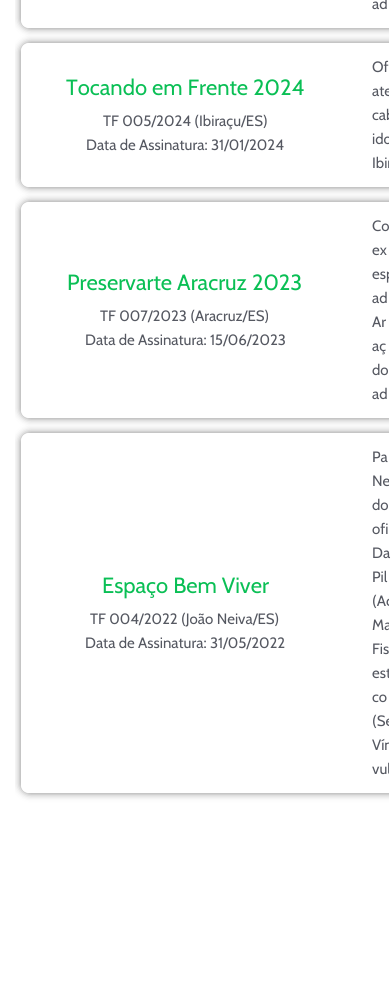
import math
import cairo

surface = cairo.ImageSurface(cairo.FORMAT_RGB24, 392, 981)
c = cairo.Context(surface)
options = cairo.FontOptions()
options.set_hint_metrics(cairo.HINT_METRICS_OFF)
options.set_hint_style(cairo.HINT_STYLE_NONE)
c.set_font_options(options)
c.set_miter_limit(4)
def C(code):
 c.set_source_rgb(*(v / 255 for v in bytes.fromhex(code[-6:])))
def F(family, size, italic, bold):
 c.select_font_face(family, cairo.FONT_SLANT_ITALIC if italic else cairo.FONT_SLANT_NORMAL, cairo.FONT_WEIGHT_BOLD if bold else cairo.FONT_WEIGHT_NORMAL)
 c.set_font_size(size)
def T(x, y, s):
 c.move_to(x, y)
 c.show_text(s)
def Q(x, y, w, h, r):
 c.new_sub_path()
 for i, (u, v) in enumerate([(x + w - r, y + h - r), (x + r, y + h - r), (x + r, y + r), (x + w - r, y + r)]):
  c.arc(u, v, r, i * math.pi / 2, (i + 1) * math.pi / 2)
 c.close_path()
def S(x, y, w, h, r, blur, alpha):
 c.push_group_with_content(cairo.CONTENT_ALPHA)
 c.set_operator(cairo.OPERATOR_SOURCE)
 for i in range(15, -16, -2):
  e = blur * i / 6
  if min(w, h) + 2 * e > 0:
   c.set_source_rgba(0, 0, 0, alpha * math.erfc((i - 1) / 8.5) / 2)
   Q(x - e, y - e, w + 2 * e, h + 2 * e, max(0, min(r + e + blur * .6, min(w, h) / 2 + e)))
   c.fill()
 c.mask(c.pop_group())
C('ffffff')
c.paint()
c.save()
c.rectangle(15,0,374,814)
c.clip()
c.set_fill_rule(cairo.FILL_RULE_EVEN_ODD)
c.new_path()
c.move_to(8,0)
c.line_to(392,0)
c.line_to(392,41)
c.line_to(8,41)
c.close_path()
c.move_to(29,-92)
c.line_to(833,-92)
c.curve_to(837.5,-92,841,-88.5,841,-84)
c.line_to(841,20)
c.curve_to(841,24.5,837.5,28,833,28)
c.line_to(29,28)
c.curve_to(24.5,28,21,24.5,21,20)
c.line_to(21,-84)
c.curve_to(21,-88.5,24.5,-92,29,-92)
c.close_path()
c.clip()
C('808080')
S(21,-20,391,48,8,4,1)
c.restore()
F('Cabin',15,0,0)
C('555861')
T(372,9,'ad')
c.save()
c.rectangle(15,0,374,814)
c.clip()
c.set_fill_rule(cairo.FILL_RULE_EVEN_ODD)
c.new_path()
c.move_to(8,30)
c.line_to(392,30)
c.line_to(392,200)
c.line_to(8,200)
c.close_path()
c.move_to(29,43)
c.line_to(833,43)
c.curve_to(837.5,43,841,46.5,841,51)
c.line_to(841,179)
c.curve_to(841,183.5,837.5,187,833,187)
c.line_to(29,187)
c.curve_to(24.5,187,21,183.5,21,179)
c.line_to(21,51)
c.curve_to(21,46.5,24.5,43,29,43)
c.close_path()
c.clip()
C('808080')
S(21,43,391,144,8,4,1)
c.restore()
F('Cabin',22,0,0)
C('0abf55')
T(66,95,'Tocando em Frente 2024')
F('Cabin',15,0,0)
C('555861')
T(103,126,'TF 005/2024 (Ibiraçu/ES)')
T(86,150,'Data de Assinatura: 31/01/2024')
T(372,72,'Of')
c.save()
c.rectangle(15,0,374,814)
c.clip()
T(372,96,'ate')
T(372,120,'cab')
T(372,144,'ido')
T(372,168,'Ibir')
c.restore()
c.save()
c.rectangle(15,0,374,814)
c.clip()
c.set_fill_rule(cairo.FILL_RULE_EVEN_ODD)
c.new_path()
c.move_to(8,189)
c.line_to(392,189)
c.line_to(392,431)
c.line_to(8,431)
c.close_path()
c.move_to(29,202)
c.line_to(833,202)
c.curve_to(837.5,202,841,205.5,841,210)
c.line_to(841,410)
c.curve_to(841,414.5,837.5,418,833,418)
c.line_to(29,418)
c.curve_to(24.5,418,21,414.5,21,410)
c.line_to(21,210)
c.curve_to(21,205.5,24.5,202,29,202)
c.close_path()
c.clip()
C('808080')
S(21,202,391,216,8,4,1)
c.restore()
F('Cabin',22,0,0)
C('0abf55')
T(67,290,'Preservarte Aracruz 2023')
F('Cabin',15,0,0)
C('555861')
T(100,321,'TF 007/2023 (Aracruz/ES)')
T(85,345,'Data de Assinatura: 15/06/2023')
T(372,231,'Co')
T(372,255,'ex')
c.save()
c.rectangle(15,0,374,814)
c.clip()
T(372,279,'esp')
c.restore()
T(372,303,'ad')
T(372,327,'Ar')
T(372,351,'aç')
T(372,375,'do')
T(372,399,'ad')
c.save()
c.rectangle(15,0,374,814)
c.clip()
c.set_fill_rule(cairo.FILL_RULE_EVEN_ODD)
c.new_path()
c.move_to(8,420)
c.line_to(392,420)
c.line_to(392,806)
c.line_to(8,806)
c.close_path()
c.move_to(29,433)
c.line_to(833,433)
c.curve_to(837.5,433,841,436.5,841,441)
c.line_to(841,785)
c.curve_to(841,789.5,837.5,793,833,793)
c.line_to(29,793)
c.curve_to(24.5,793,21,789.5,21,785)
c.line_to(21,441)
c.curve_to(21,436.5,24.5,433,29,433)
c.close_path()
c.clip()
C('808080')
S(21,433,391,360,8,4,1)
c.restore()
F('Cabin',22,0,0)
C('0abf55')
T(102,593,'Espaço Bem Viver')
F('Cabin',15,0,0)
C('555861')
T(90,624,'TF 004/2022 (João Neiva/ES)')
T(85,648,'Data de Assinatura: 31/05/2022')
T(372,462,'Pa')
c.save()
c.rectangle(15,0,374,814)
c.clip()
T(372,486,'Ne')
c.restore()
T(372,510,'do')
T(372,534,'ofi')
T(372,558,'Da')
T(372,582,'Pil')
c.save()
c.rectangle(15,0,374,814)
c.clip()
T(372,606,'(Ac')
T(372,630,'Ma')
c.restore()
T(372,654,'Fis')
c.save()
c.rectangle(15,0,374,814)
c.clip()
T(372,678,'est')
c.restore()
T(372,702,'co')
c.save()
c.rectangle(15,0,374,814)
c.clip()
T(372,726,'(Se')
T(372,750,'Vín')
T(372,774,'vul')
c.restore()
surface.write_to_png('o.png')
